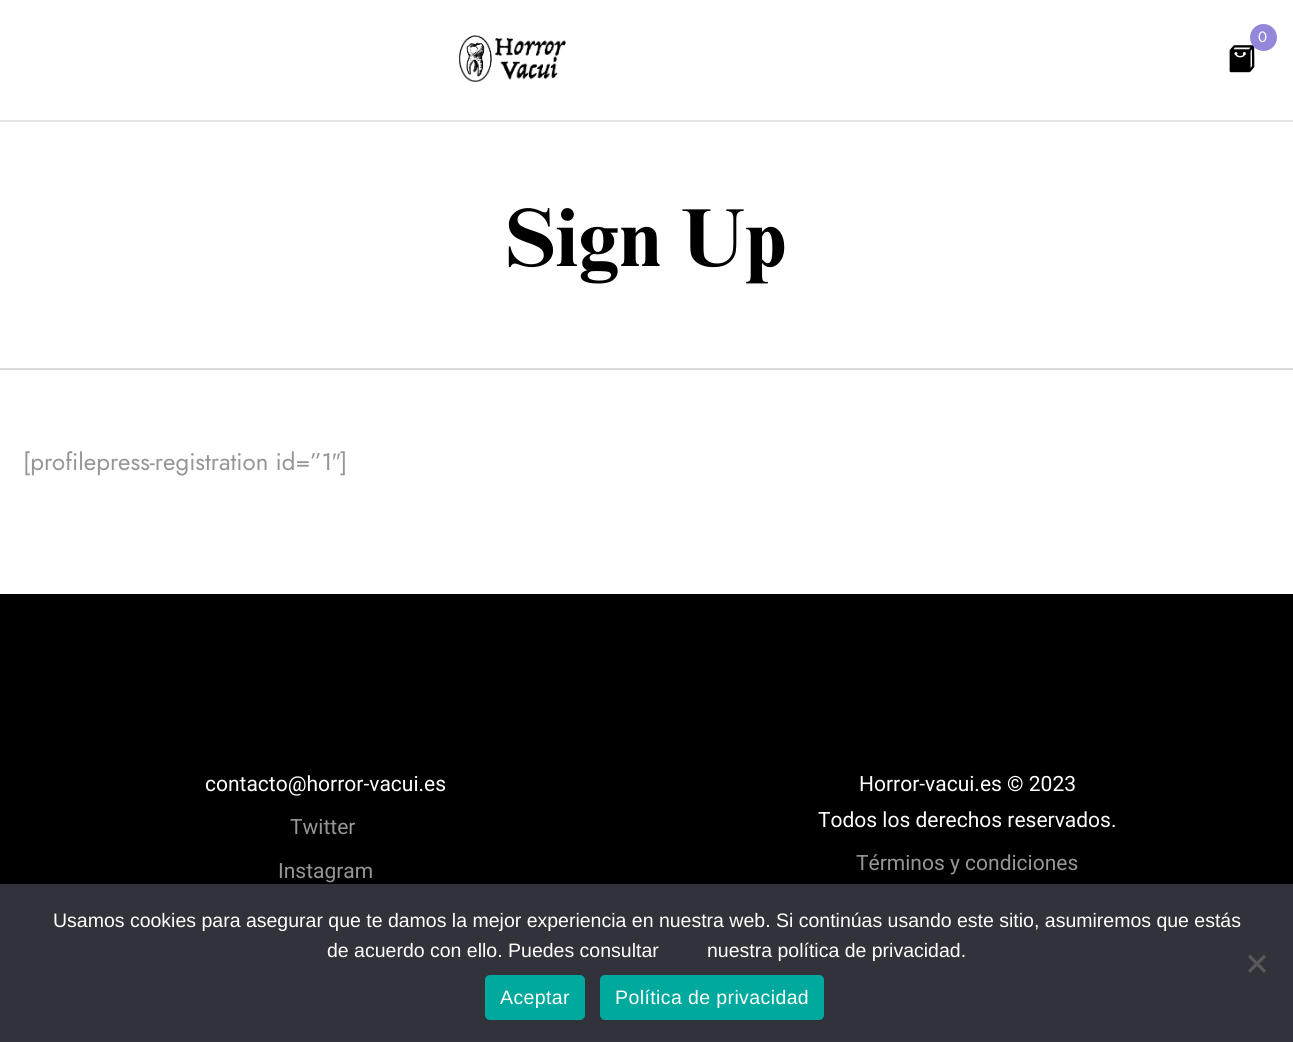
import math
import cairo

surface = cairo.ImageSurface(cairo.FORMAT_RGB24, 1293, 1042)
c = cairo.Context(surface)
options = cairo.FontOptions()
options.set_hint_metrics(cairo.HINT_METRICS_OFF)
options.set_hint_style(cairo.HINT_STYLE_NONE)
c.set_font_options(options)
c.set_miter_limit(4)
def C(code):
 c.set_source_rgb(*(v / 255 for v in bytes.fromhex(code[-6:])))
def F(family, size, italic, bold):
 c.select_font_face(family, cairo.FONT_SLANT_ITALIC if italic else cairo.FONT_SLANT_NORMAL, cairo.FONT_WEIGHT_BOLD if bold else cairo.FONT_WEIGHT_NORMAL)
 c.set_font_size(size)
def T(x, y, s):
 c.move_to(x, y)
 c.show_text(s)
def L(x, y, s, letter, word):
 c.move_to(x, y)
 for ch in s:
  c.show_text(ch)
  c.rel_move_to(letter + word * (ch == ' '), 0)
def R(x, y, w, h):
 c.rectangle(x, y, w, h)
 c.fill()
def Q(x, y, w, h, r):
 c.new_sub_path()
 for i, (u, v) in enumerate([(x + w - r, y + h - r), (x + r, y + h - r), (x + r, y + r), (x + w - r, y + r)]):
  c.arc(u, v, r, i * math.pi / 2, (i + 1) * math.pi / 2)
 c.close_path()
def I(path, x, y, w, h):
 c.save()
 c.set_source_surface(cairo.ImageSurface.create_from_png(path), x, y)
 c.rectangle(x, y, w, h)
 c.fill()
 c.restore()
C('ffffff')
c.paint()
C('e5e5e5')
R(0,120,1293,2)
I('1.png',458,35,108,47)
I('2.png',1229,45,26,28)
C('9387d9')
c.arc(1263.5,37.5,13.5,0,2 * math.pi)
c.fill()
F('Jost',15,0,0)
C('ffffff')
T(1258,42,'0')
C('dbdbdb')
R(0,368,1293,2)
F('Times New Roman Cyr',82.5,0,1)
C('000000')
T(506,266,'Sign Up')
F('Jost',24,0,0)
C('969696')
T(23,470,'[profilepress-registration id=”1')
F('Liberation Sans',24,0,0)
T(332,470,'″')
F('Jost',24,0,0)
T(340,470,']')
C('000000')
R(0,594,1293,290)
F('Roboto',21,0,0)
C('ffffff')
T(205,791,'contacto@horror-vacui.es')
T(859,791,'Horror-vacui.es © 2023')
T(818,827,'Todos los derechos reservados.')
C('969696')
T(290,834,'Twitter')
T(278,878,'Instagram')
T(856,870,'Términos y condiciones')
C('32323a')
R(0,884,1293,158)
F('Liberation Sans',19.5,0,0)
C('ffffff')
T(53,927,'Usamos cookies para asegurar que te damos la mejor experiencia en nuestra web. Si continúas usando este sitio, asumiremos que estás')
T(327,957,'de acuerdo con ello. Puedes consultar')
T(707,957,'nuestra política de privacidad.')
C('59595d')
c.new_path()
c.move_to(1264,954.5)
c.line_to(1266,957)
c.line_to(1250,973)
c.line_to(1248,970.5)
c.close_path()
c.fill()
c.new_path()
c.move_to(1248,957)
c.line_to(1250,954.5)
c.line_to(1266,970.5)
c.line_to(1264,973)
c.close_path()
c.fill()
C('00a99d')
Q(485,975,100,45,5)
c.fill()
C('ffffff')
L(500,1004,'Aceptar',.4,0)
C('00a99d')
Q(600,975,224,45,5)
c.fill()
C('ffffff')
L(615,1004,'Política de privacidad',.4,0)
surface.write_to_png('o.png')
